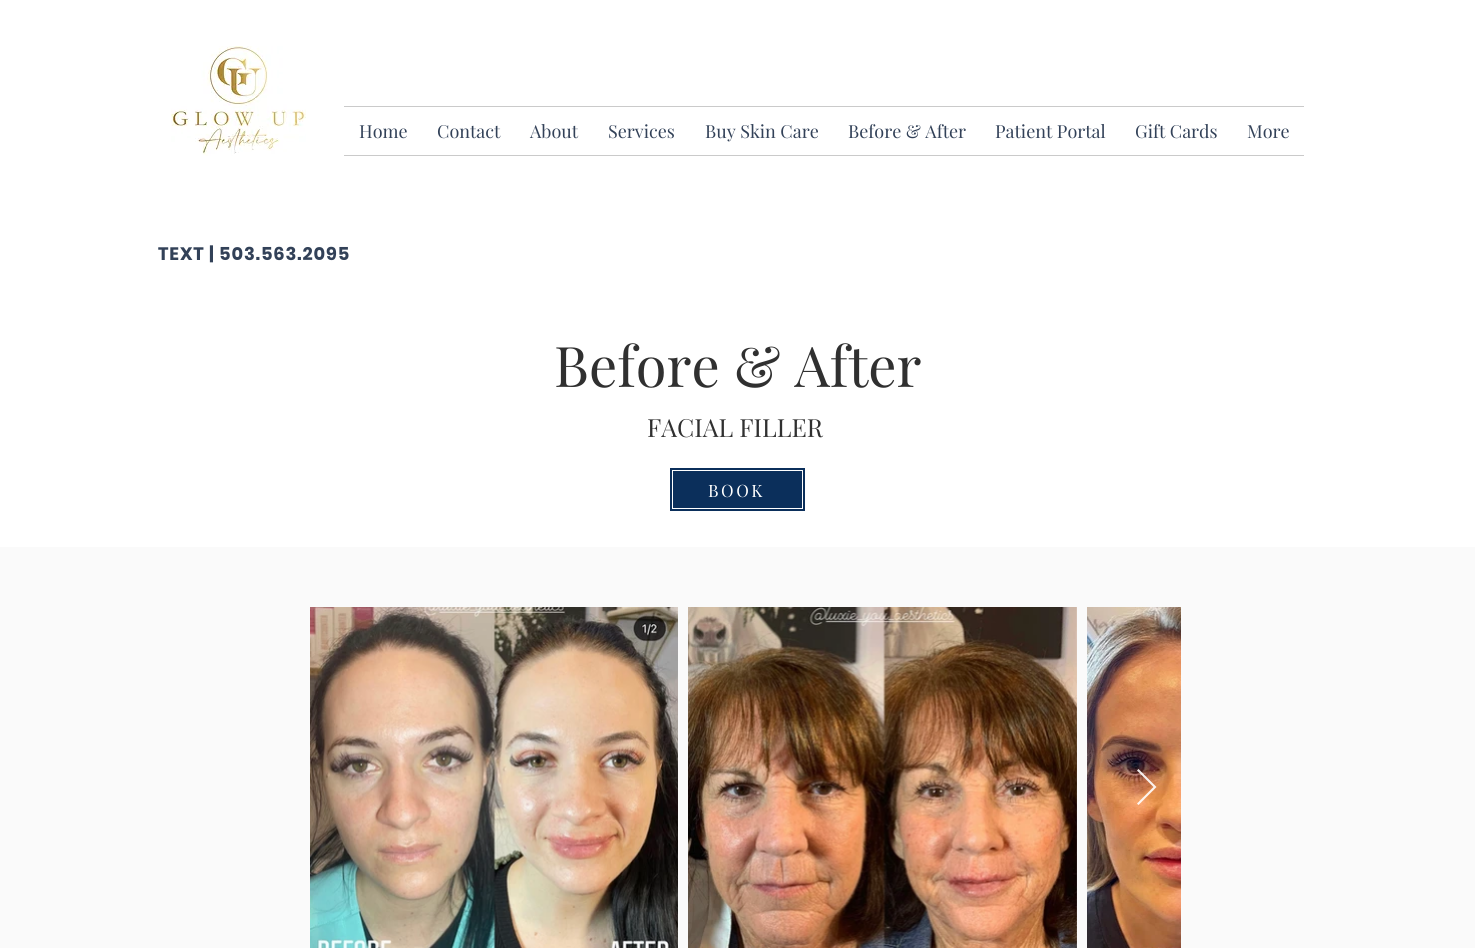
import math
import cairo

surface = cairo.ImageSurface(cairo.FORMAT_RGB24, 1475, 948)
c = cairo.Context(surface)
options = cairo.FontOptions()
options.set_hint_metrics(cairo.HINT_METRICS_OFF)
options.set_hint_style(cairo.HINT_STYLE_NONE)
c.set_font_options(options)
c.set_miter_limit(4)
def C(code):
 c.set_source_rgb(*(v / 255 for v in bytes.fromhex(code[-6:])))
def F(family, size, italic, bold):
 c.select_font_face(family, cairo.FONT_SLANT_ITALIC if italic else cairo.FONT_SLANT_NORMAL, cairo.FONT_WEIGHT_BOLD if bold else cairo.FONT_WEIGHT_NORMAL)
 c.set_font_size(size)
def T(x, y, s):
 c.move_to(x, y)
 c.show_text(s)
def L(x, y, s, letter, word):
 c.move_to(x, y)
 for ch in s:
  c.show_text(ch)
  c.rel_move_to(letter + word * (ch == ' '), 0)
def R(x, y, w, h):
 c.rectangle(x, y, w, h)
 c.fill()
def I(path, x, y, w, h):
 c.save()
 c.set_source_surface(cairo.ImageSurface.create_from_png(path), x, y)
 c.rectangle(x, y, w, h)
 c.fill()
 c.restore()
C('ffffff')
c.paint()
I('1.png',171,46,135,110)
C('cacaca')
R(344,106,960,1)
R(344,155,960,1)
F('Playfair Display',18,0,0)
C('324158')
T(359,138,'Home')
T(437,138,'Contact')
T(530,138,'About')
T(608,138,'Services')
T(705,138,'Buy Skin Care')
T(848,138,'Before & After')
T(995,138,'Patient Portal')
T(1135,138,'Gift Cards')
T(1247,138,'More')
F('Poppins',18,0,1)
L(158,260,'TEXT | 503.563.2095',.9,0)
F('Playfair Display',56,0,0)
C('303030')
T(554,387,'Before & After')
F('Playfair Display',25,0,0)
T(647,437,'FACIAL FILLER')
C('0b2f5b')
R(670,468,135,43)
c.rectangle(672.5,470.5,130,38)
C('ffffff')
c.set_line_width(1)
c.stroke()
F('Playfair Display',17,0,0)
L(708,497,'BOOK',2.5,0)
C('fafafa')
R(0,547,1475,401)
I('2.png',310,607,368,341)
I('3.png',688,607,389,341)
I('4.png',1087,607,94,341)
c.set_source_rgba(1,1,1,0.9)
c.new_path()
c.move_to(1137,770.5)
c.line_to(1138.5,769)
c.line_to(1156.5,787)
c.line_to(1138.5,805)
c.line_to(1137,803.5)
c.line_to(1153.5,787)
c.close_path()
c.fill()
surface.write_to_png('o.png')
